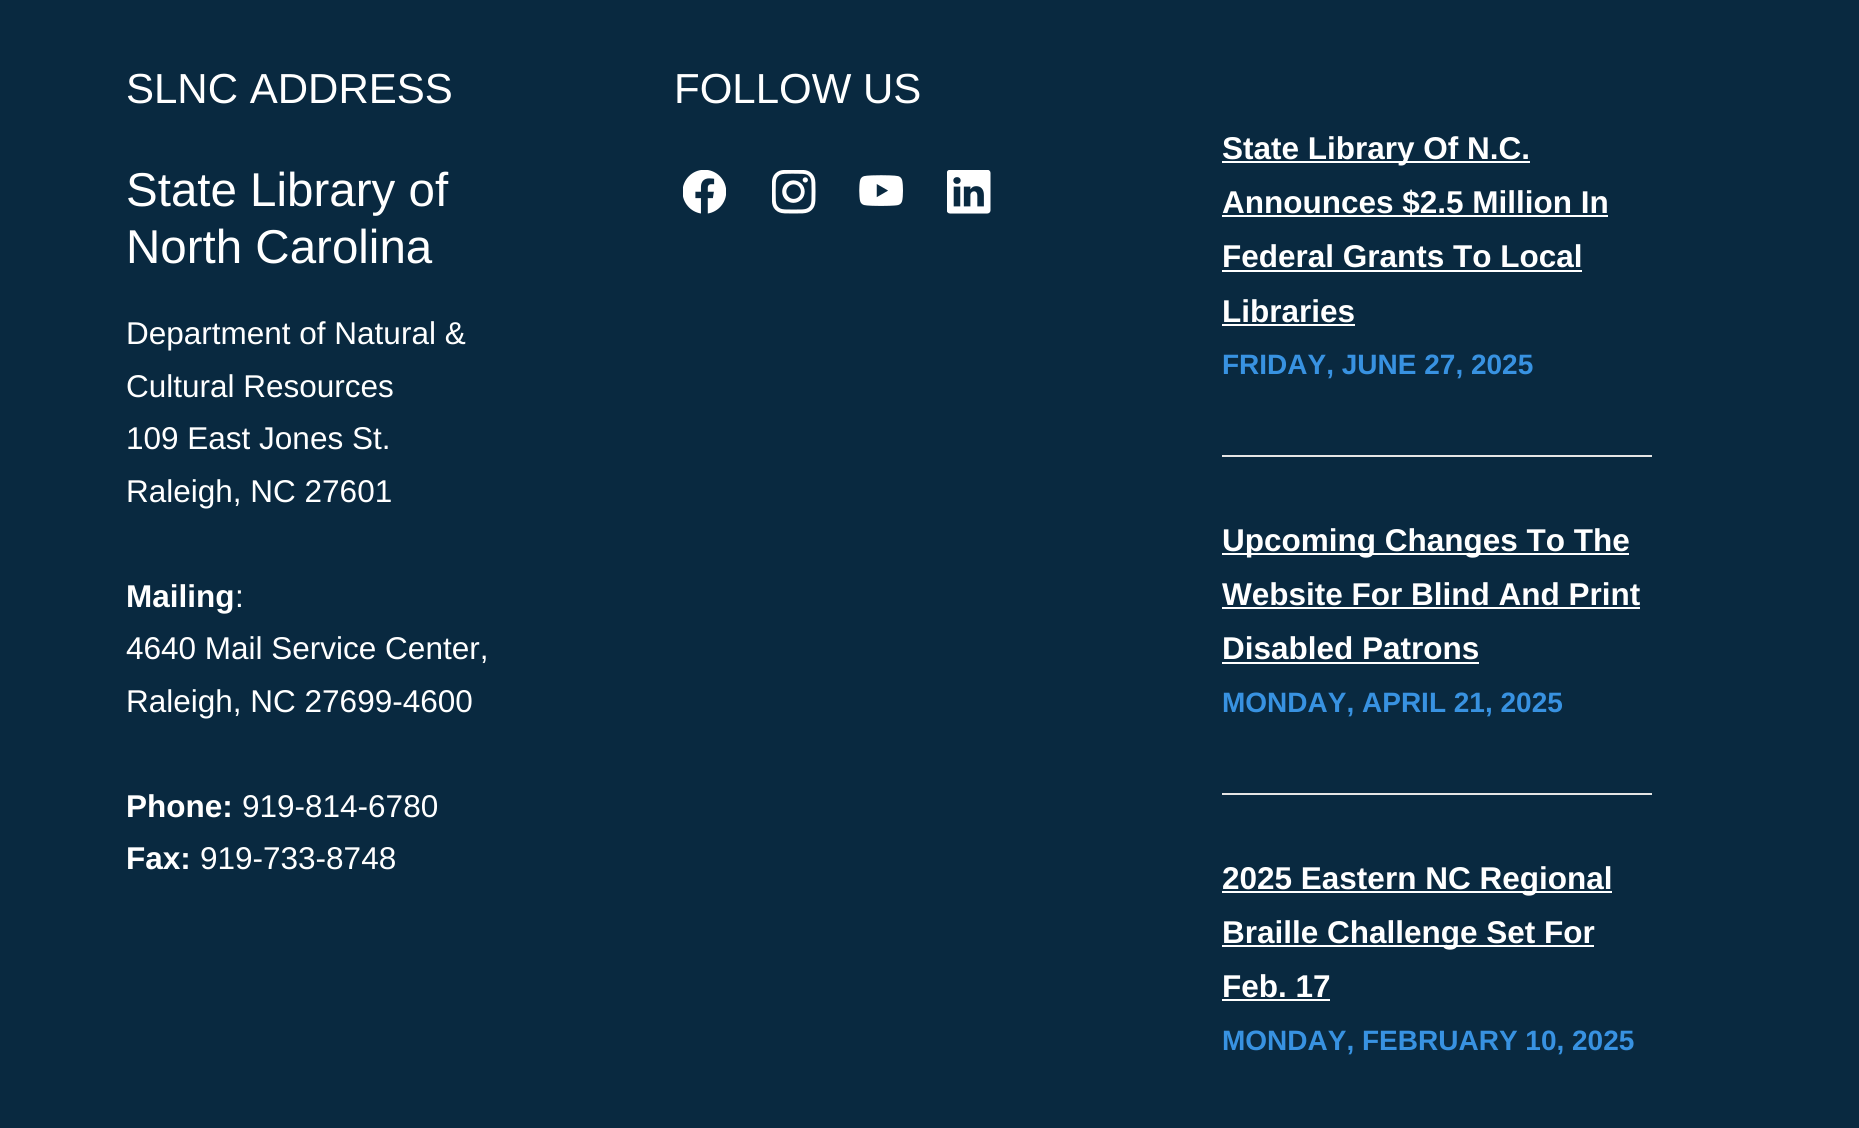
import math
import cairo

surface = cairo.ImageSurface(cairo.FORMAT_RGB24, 1859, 1128)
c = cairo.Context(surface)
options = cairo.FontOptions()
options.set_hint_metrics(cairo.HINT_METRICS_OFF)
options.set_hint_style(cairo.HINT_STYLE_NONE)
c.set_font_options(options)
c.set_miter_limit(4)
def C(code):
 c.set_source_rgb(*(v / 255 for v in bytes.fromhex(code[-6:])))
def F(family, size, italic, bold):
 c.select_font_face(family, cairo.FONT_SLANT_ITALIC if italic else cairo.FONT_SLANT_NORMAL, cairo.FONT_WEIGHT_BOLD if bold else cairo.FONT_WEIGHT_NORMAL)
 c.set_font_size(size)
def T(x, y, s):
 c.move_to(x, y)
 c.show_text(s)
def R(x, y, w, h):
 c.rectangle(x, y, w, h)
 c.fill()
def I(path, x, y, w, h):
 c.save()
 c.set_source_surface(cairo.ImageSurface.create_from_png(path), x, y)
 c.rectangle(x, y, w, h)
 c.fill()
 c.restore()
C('092940')
c.paint()
F('Liberation Sans',42,0,0)
C('ffffff')
T(126,103,'SLNC ADDRESS')
F('Liberation Sans',47.5,0,0)
T(126,206,'State Library of')
T(126,263,'North Carolina')
F('Liberation Sans',31.5,0,0)
T(126,344,'Department of Natural &')
T(126,397,'Cultural Resources')
T(126,449,'109 East Jones St.')
T(126,502,'Raleigh, NC 27601')
F('Liberation Sans',31.5,0,1)
T(126,607,'Mailing')
F('Liberation Sans',31.5,0,0)
T(235,607,':')
T(126,659,'4640 Mail Service Center,')
T(126,712,'Raleigh, NC 27699-4600')
F('Liberation Sans',31.5,0,1)
T(126,817,'Phone:')
F('Liberation Sans',31.5,0,0)
T(242,817,'919-814-6780')
F('Liberation Sans',31.5,0,1)
T(126,869,'Fax:')
F('Liberation Sans',31.5,0,0)
T(200,869,'919-733-8748')
F('Liberation Sans',42,0,0)
T(674,103,'FOLLOW US')
I('1.png',683,170,43,44)
I('2.png',772,170,44,44)
I('3.png',859,175,44,31)
I('4.png',947,170,44,44)
C('e5e5e5')
R(1222,455,430,2)
C('ffffff')
R(1222,161,308,2)
F('Liberation Sans',31.5,0,1)
T(1222,159,'State Library Of N.C.')
R(1222,215,386,2)
T(1222,213,'Announces $2.5 Million In')
T(1222,267,'Federal Grants To Local')
R(1222,270,360,2)
T(1222,322,'Libraries')
R(1222,324,133,2)
F('Liberation Sans',28,0,1)
C('3892e1')
T(1222,374,'FRIDAY, JUNE 27, 2025')
C('e5e5e5')
R(1222,793,430,2)
C('ffffff')
R(1222,553,407,2)
F('Liberation Sans',31.5,0,1)
T(1222,551,'Upcoming Changes To The')
T(1222,605,'Website For Blind And Print')
R(1222,607,418,2)
T(1222,659,'Disabled Patrons')
R(1222,662,257,2)
F('Liberation Sans',28,0,1)
C('3892e1')
T(1222,712,'MONDAY, APRIL 21, 2025')
C('ffffff')
R(1222,891,390,2)
F('Liberation Sans',31.5,0,1)
T(1222,889,'2025 Eastern NC Regional')
R(1222,945,372,2)
T(1222,943,'Braille Challenge Set For')
T(1222,997,'Feb. 17')
R(1222,999,108,2)
F('Liberation Sans',28,0,1)
C('3892e1')
T(1222,1050,'MONDAY, FEBRUARY 10, 2025')
surface.write_to_png('o.png')
